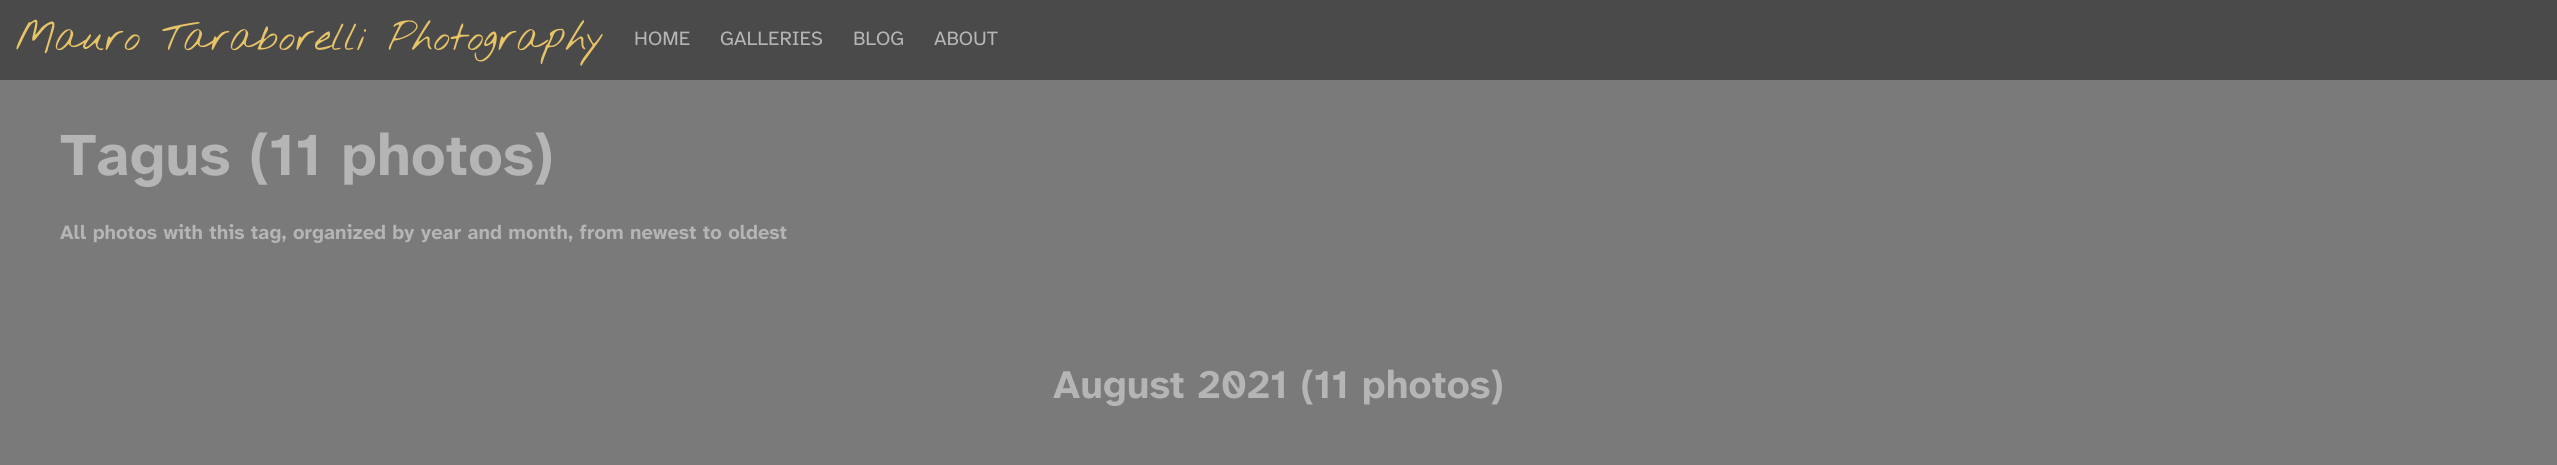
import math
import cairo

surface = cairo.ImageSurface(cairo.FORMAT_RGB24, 2557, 465)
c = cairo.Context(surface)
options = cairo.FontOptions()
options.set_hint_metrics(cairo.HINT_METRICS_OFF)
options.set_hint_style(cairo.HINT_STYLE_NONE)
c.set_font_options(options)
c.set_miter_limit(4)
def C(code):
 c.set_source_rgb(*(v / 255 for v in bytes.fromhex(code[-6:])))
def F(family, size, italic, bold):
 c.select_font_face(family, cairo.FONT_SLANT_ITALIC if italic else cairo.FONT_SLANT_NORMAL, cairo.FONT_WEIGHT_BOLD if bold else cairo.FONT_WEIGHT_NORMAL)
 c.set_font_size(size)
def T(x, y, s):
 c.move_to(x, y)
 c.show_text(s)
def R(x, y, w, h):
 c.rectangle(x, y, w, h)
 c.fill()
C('7a7a7a')
c.paint()
C('4a4a4a')
R(0,0,2557,80)
F('Nothing You Could Do Thin',40,0,0)
C('e8c468')
T(15,50,'Mauro Taraborelli Photography')
F('Atkinson Hyperlegible Next',20,0,0)
C('b5b5b5')
T(634,45,'HOME')
T(720,45,'GALLERIES')
T(853,45,'BLOG')
T(934,45,'ABOUT')
F('Atkinson Hyperlegible Next',60,0,1)
T(60,175,'Tagus (11 photos)')
F('Atkinson Hyperlegible Next',20,0,1)
T(60,239,'All photos with this tag, organized by year and month, from newest to oldest')
F('Atkinson Hyperlegible Next',40,0,1)
T(1053,398,'August 2021 (11 photos)')
surface.write_to_png('o.png')
